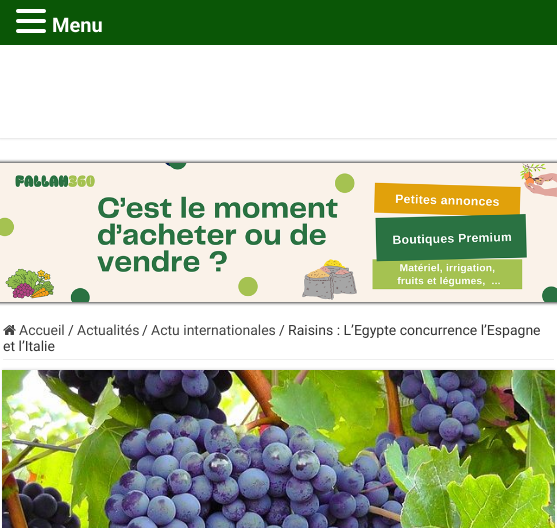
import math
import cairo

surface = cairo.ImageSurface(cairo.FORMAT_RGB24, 557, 528)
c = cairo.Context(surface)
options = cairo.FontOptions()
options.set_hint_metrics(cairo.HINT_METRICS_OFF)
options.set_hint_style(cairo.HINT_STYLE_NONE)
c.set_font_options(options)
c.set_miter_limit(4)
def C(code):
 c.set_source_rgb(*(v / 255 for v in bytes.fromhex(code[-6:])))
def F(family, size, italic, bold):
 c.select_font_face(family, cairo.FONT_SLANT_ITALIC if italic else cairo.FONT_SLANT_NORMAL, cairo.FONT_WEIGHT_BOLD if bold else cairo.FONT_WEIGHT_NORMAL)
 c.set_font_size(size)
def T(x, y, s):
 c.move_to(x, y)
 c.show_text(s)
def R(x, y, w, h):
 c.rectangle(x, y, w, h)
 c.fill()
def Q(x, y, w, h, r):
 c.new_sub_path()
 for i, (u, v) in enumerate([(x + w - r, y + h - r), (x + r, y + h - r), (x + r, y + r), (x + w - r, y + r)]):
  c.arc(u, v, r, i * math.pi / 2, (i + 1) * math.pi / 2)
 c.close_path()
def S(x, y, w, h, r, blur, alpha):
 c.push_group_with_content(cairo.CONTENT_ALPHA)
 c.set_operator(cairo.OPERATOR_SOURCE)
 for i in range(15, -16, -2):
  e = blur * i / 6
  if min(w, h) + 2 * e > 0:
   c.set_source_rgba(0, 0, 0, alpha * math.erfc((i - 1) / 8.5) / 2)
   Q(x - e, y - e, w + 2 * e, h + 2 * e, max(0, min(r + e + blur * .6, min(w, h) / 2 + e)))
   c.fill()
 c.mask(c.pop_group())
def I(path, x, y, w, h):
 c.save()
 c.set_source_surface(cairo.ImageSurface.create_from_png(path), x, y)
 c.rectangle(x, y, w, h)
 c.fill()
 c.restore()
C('ffffff')
c.paint()
c.save()
c.rectangle(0,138,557,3)
c.clip()
C('cacaca')
S(0,42,557,96,0,1.5,1)
c.restore()
C('0a5606')
R(0,0,557,45)
C('ffffff')
Q(16,9,30,4,2)
c.fill()
Q(16,19,30,4,2)
c.fill()
Q(16,29,30,4,2)
c.fill()
F('Roboto',20,0,1)
T(52,32,'Menu')
C('434343')
S(-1,162,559,141,0,1.5,1)
I('1.png',0,163,557,139)
C('eeeeee')
R(3,359,551,1)
I('2.png',3,325,13,10)
F('Roboto',14,0,0)
C('444444')
T(19,335,'Accueil')
C('333333')
T(68,335,'/')
C('444444')
T(77,335,'Actualités')
C('333333')
T(142,335,'/')
C('444444')
T(151,335,'Actu internationales')
C('333333')
T(279,335,'/')
T(288,335,'Raisins : L’Egypte concurrence l’Espagne')
T(3,351,'et l’Italie')
C('cacaca')
S(3,370,551,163,0,1.5,1)
I('3.png',2,370,553,158)
surface.write_to_png('o.png')
